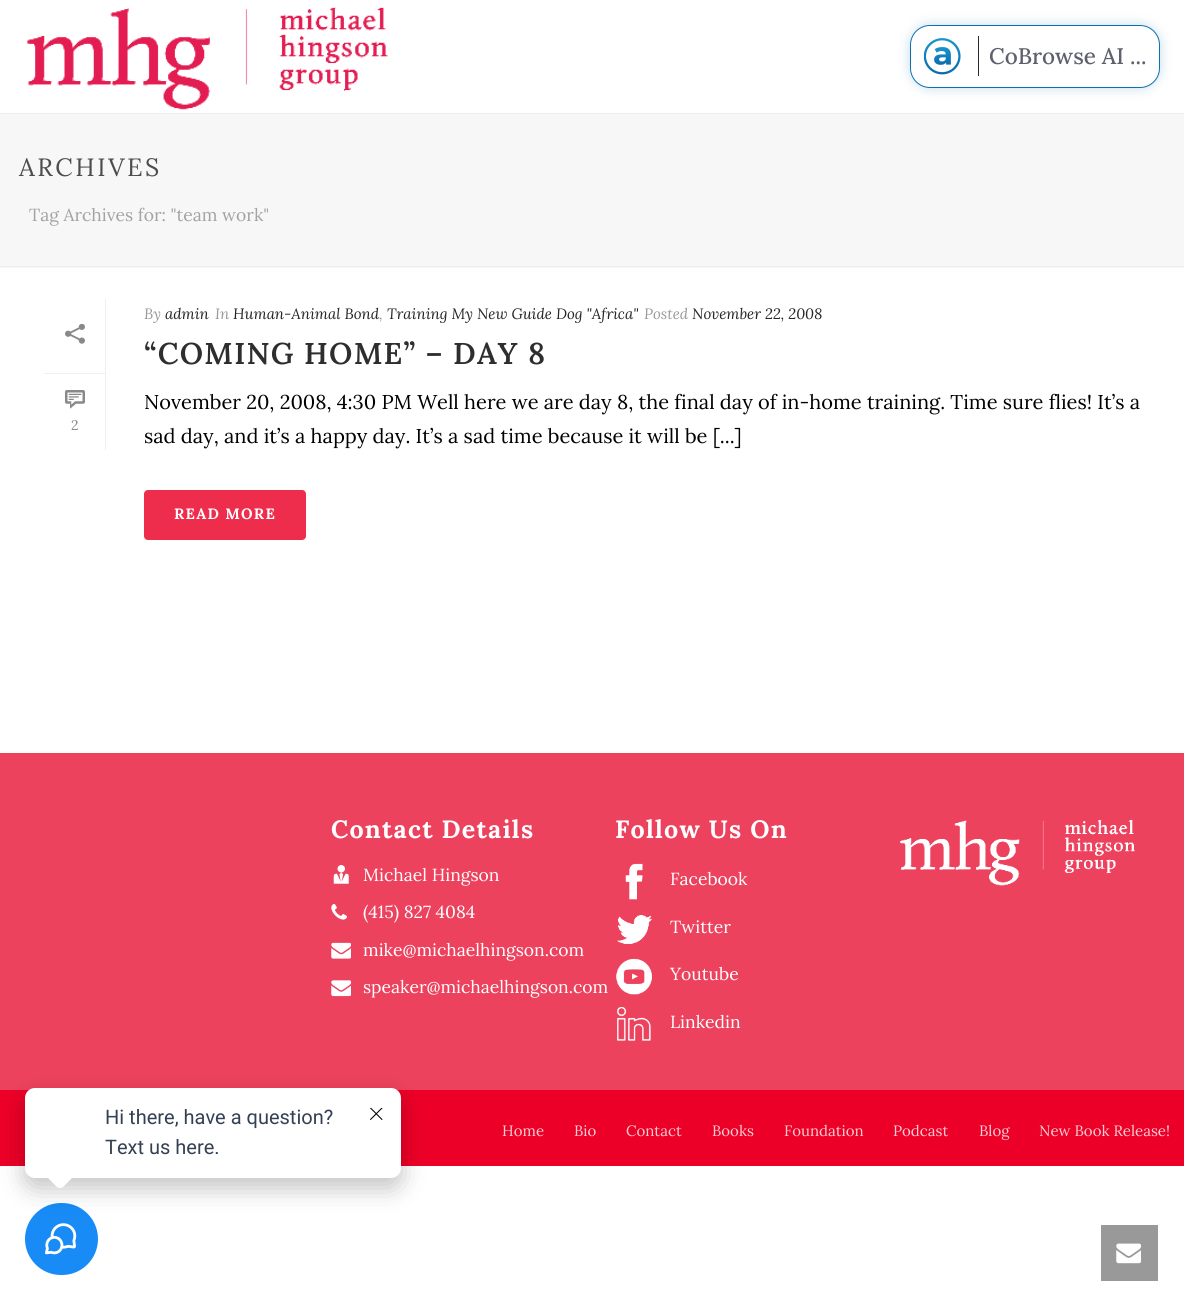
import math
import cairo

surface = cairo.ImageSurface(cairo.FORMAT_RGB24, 1184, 1300)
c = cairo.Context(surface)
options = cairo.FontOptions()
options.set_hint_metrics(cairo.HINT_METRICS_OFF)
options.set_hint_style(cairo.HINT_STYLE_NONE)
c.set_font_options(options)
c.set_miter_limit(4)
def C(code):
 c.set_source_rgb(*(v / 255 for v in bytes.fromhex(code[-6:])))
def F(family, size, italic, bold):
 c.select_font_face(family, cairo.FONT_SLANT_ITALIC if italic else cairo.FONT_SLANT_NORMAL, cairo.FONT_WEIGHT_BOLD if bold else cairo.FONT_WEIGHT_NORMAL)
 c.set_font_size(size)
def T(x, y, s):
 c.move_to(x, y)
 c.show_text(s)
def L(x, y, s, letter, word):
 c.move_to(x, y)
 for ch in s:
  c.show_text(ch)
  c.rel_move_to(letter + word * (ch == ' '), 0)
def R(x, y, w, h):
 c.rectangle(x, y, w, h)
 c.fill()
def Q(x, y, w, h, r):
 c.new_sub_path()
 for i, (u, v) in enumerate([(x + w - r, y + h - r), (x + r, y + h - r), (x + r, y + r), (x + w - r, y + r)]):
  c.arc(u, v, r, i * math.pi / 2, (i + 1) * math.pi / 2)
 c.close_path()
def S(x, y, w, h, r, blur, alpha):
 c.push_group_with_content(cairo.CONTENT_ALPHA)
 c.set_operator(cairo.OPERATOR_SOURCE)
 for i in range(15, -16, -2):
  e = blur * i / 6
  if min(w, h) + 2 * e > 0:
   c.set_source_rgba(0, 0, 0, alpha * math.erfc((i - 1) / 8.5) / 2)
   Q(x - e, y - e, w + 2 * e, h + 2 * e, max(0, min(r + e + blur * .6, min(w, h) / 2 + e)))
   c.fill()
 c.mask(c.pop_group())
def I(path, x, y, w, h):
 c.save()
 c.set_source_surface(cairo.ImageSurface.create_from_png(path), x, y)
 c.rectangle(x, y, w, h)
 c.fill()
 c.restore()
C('ffffff')
c.paint()
C('0e70af')
S(910,25,250,63,20,6,.25)
C('ffffff')
Q(910.5,25.5,249,62,19.5)
c.fill_preserve()
C('0e70af')
c.set_line_width(1)
c.stroke()
I('1.png',924,38,37,37)
C('28292f')
R(978,36,1,40)
F('Lora Medium',22.5,0,0)
C('5f606d')
T(989,64,'CoBrowse AI ...')
C('f7f7f7')
R(0,114,1184,154)
C('ededed')
R(0,266,1184,1)
R(0,113,1184,1)
I('2.png',27,6,361,104)
F('Lora',25,0,0)
C('4d4d4d')
L(19,176,'ARCHIVES',2.5,0)
F('Lora',17.5,0,0)
C('a3a3a3')
T(29,221,'Tag Archives for: "team work"')
C('efefef')
R(105,299,1,151)
R(44,373,61,1)
I('3.png',65,324,20,20)
I('4.png',65,390,20,19)
F('Lora',14,0,0)
C('898989')
T(71,430,'2')
F('Lora',15,1,0)
C('999999')
T(144,319,'By')
C('252525')
T(165,319,'admin')
C('999999')
T(215,319,'In')
C('252525')
T(233,319,'Human-Animal Bond')
C('999999')
T(379,319,',')
C('252525')
T(387,319,'Training My New Guide Dog "Africa"')
C('999999')
T(644,319,'Posted')
C('252525')
T(692,319,'November 22, 2008')
F('Lora SemiBold',30,0,0)
C('2e2e2e')
L(144,364,'“COMING HOME” – DAY 8',1.25,0)
F('Lora',20,0,0)
C('000000')
T(144,409,'November 20, 2008, 4:30 PM Well here we are day 8, the final day of in-home training. Time sure flies! It’s a')
T(144,443,'sad day, and it’s a happy day. It’s a sad time because it will be [...]')
C('ee2d4c')
Q(144,490,162,50,4)
c.fill()
F('Lora',15,0,1)
C('ffffff')
L(174,519,'READ MORE',1.25,0)
C('ed425e')
R(0,753,1184,337)
F('Lora',25,0,1)
C('ffffff')
L(331,838,'Contact Details',1.25,0)
I('5.png',333,865,16,19)
F('Lora',17.5,0,0)
T(363,881,'Michael Hingson')
I('6.png',331,903,16,17)
T(363,918,'(415) 827 4084')
I('7.png',331,942,20,17)
T(363,956,'mike@michaelhingson.com')
I('8.png',331,980,20,17)
T(363,993,'speaker@michaelhingson.com')
F('Lora',25,0,1)
L(615,838,'Follow Us On',1.25,0)
I('9.png',625,863,18,37)
F('Lora',17.5,0,0)
T(670,885,'Facebook')
I('10.png',617,915,35,29)
T(670,933,'Twitter')
I('11.png',616,958,36,37)
T(670,980,'Youtube')
I('12.png',617,1007,34,34)
T(670,1028,'Linkedin')
I('13.png',900,819,236,67)
C('ed0027')
R(0,1090,1184,76)
F('Lora',15,0,0)
C('fbccd4')
T(502,1136,'Home')
T(574,1136,'Bio')
T(626,1136,'Contact')
T(712,1136,'Books')
T(784,1136,'Foundation')
T(893,1136,'Podcast')
T(979,1136,'Blog')
T(1039,1136,'New Book Release!')
C('999999')
R(1101,1225,57,56)
I('14.png',1116,1243,25,21)
C('188bf6')
Q(25,1203,73,72,36)
c.fill()
I('16.png',45,1223,32,32)
C('000000')
S(25,1098,376,90,10,12.5,.24)
C('ffffff')
Q(25,1088,376,90,10)
c.fill()
F('Roboto',20,0,0)
C('344054')
T(105,1124,'Hi there, have a question?')
T(105,1154,'Text us here.')
C('ffffff')
c.new_path()
c.move_to(63.5,1158.5)
c.line_to(74,1169)
c.curve_to(76,1171,76,1174,74,1176)
c.line_to(63.5,1186.5)
c.curve_to(61.5,1188.5,58.5,1188.5,56.5,1186.5)
c.line_to(46,1176)
c.curve_to(44,1174,44,1171,46,1169)
c.line_to(56.5,1158.5)
c.curve_to(58.5,1156.5,61.5,1156.5,63.5,1158.5)
c.close_path()
c.fill()
I('15.png',370,1108,13,12)
surface.write_to_png('o.png')
